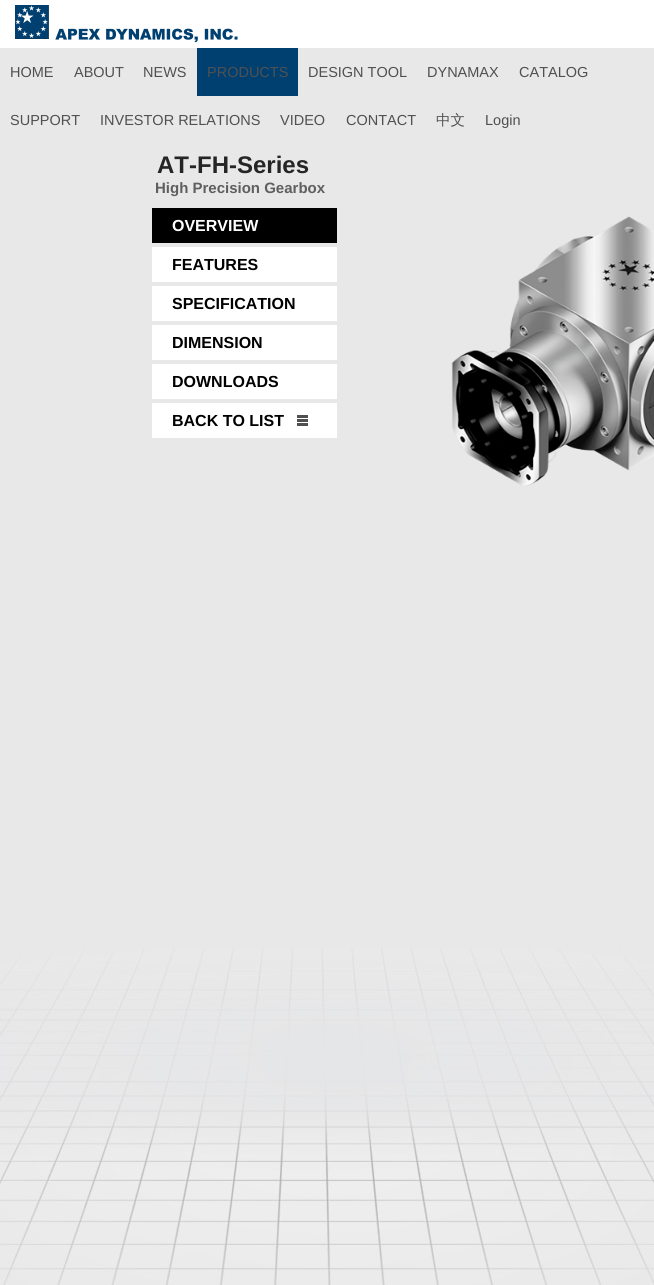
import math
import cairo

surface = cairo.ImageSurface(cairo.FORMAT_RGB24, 654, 1285)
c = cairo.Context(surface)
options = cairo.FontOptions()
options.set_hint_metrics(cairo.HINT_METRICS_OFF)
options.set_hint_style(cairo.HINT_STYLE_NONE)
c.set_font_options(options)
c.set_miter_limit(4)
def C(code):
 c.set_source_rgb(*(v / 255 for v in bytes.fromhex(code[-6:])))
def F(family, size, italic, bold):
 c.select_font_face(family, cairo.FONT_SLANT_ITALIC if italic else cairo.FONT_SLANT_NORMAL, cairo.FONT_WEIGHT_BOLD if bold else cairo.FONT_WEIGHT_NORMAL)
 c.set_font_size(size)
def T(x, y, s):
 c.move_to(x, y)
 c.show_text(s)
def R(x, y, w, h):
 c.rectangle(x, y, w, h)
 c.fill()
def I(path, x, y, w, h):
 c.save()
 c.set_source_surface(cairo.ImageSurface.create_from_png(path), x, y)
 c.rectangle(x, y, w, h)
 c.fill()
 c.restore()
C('e8e8e8')
c.paint()
C('ffffff')
R(0,0,654,48)
I('1.png',15,5,223,38)
F('Liberation Sans',14.5,0,0)
C('505050')
T(10,77,'HOME')
T(74,77,'ABOUT')
T(143,77,'NEWS')
C('004071')
R(197,48,101,48)
C('505050')
T(207,77,'PRODUCTS')
T(308,77,'DESIGN TOOL')
T(427,77,'DYNAMAX')
T(519,77,'CATALOG')
T(10,125,'SUPPORT')
T(100,125,'INVESTOR RELATIONS')
T(280,125,'VIDEO')
T(346,125,'CONTACT')
F('WenQuanYi Zen Hei Medium',14.5,0,0)
T(436,125,'中文')
F('Liberation Sans',14.5,0,0)
T(485,125,'Login')
F('Liberation Sans',24,0,1)
C('252525')
T(157,173,'AT-FH-Series')
F('Liberation Sans',15,0,1)
C('5f5f5f')
T(155,193,'High Precision Gearbox')
C('000000')
R(152,208,185,35)
F('Liberation Sans',16,0,1)
C('ffffff')
T(172,231,'OVERVIEW')
R(152,247,185,35)
C('000000')
T(172,270,'FEATURES')
C('ffffff')
R(152,286,185,35)
C('000000')
T(172,309,'SPECIFICATION')
C('ffffff')
R(152,325,185,35)
C('000000')
T(172,348,'DIMENSION')
C('ffffff')
R(152,364,185,35)
C('000000')
T(172,387,'DOWNLOADS')
C('ffffff')
R(152,403,185,35)
I('2.png',297,415,11,11)
C('000000')
T(172,426,'BACK TO LIST')
I('3.png',451,216,203,270)
I('4.png',0,948,654,337)
surface.write_to_png('o.png')
